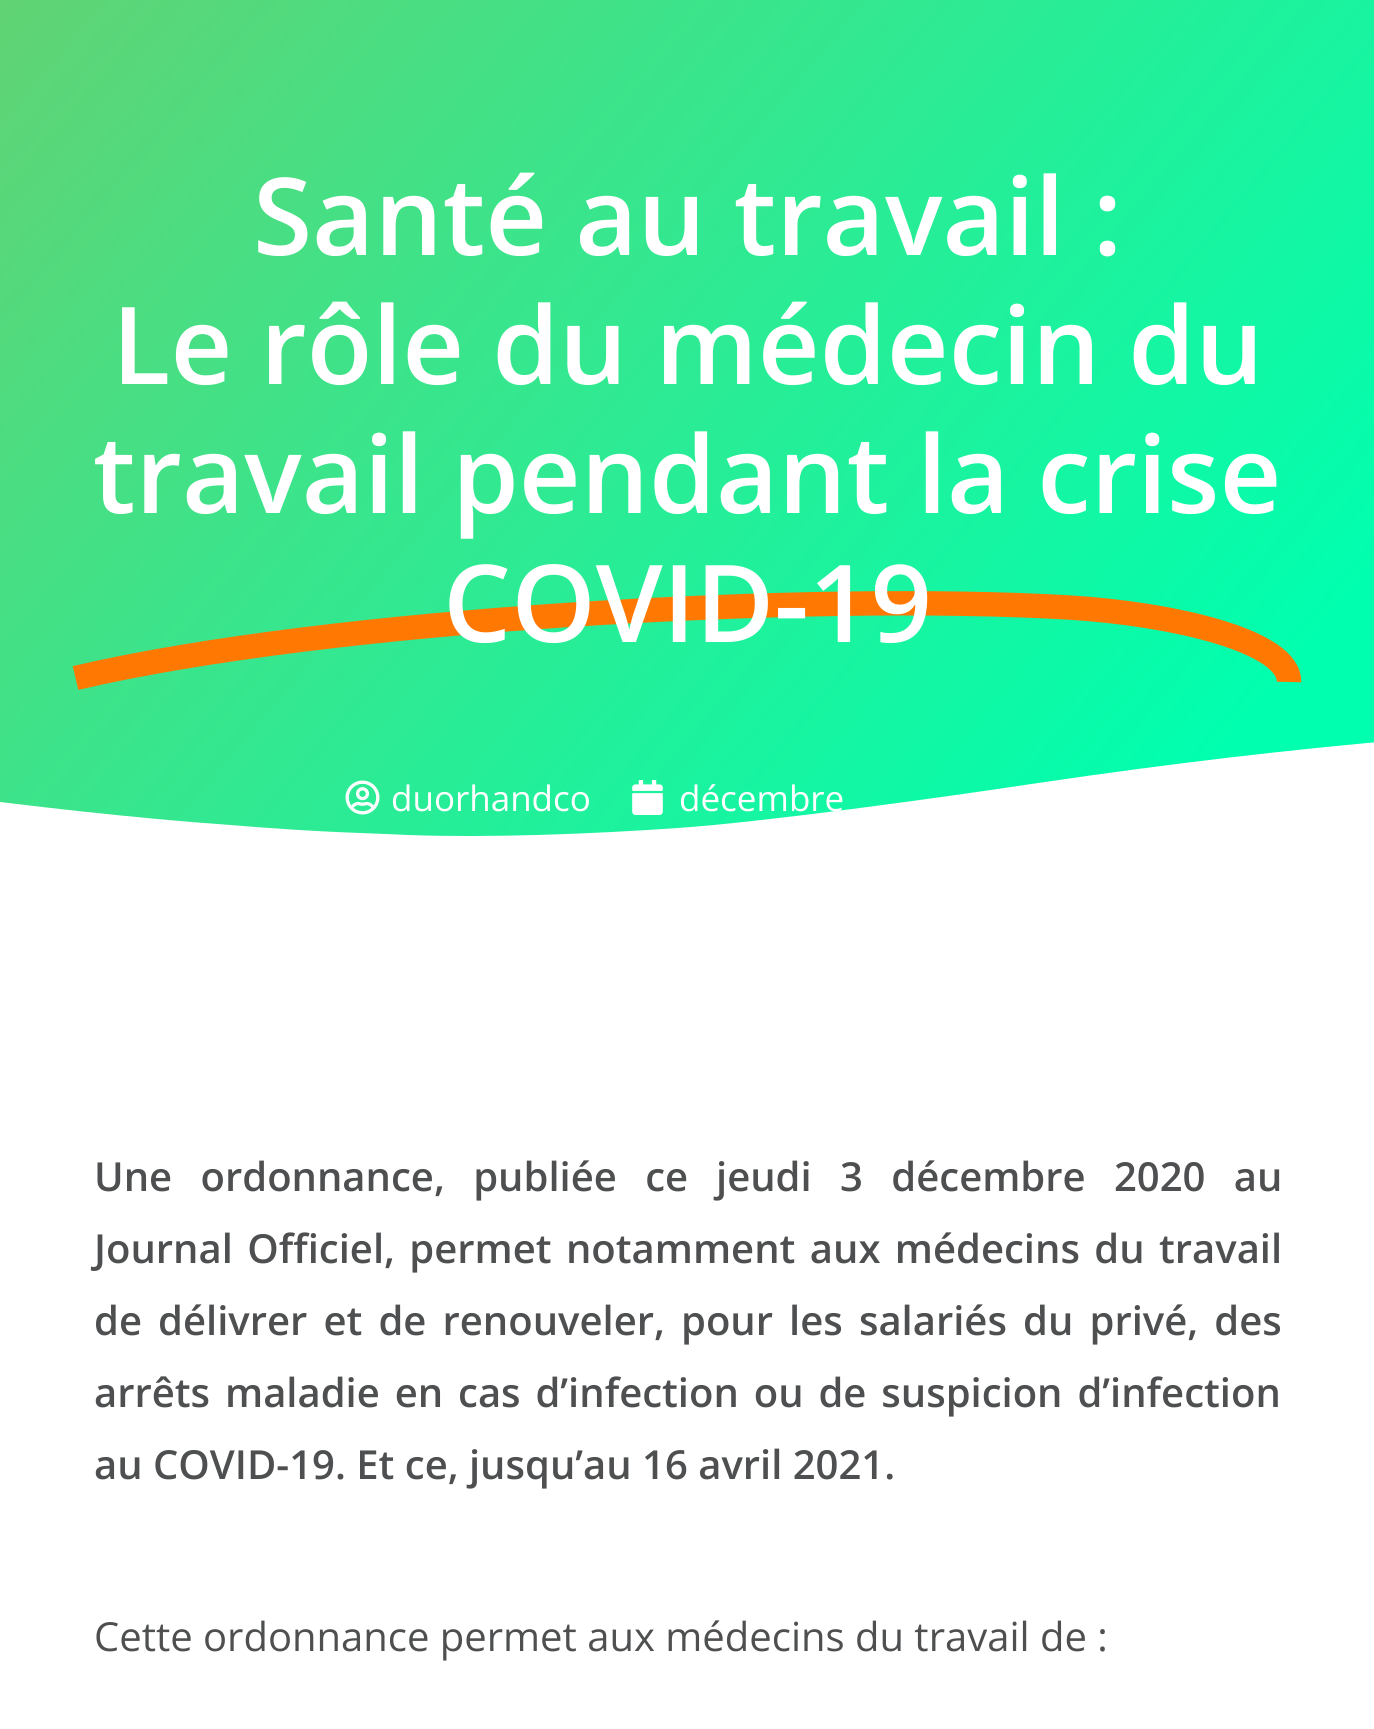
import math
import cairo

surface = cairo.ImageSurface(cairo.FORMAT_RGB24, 1374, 1729)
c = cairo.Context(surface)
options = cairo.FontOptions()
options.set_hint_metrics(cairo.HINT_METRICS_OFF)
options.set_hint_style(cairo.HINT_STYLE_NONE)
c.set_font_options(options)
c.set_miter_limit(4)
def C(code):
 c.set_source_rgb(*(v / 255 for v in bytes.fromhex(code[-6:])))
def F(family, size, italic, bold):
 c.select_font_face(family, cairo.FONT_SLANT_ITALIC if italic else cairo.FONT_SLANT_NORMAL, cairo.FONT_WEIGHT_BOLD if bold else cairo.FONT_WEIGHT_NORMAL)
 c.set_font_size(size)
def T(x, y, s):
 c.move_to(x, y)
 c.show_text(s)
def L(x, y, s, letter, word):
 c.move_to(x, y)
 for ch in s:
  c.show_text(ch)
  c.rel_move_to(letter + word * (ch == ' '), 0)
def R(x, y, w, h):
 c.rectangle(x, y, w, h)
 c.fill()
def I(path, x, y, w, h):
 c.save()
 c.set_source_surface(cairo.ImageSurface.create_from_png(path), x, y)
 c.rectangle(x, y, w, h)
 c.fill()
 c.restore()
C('ffffff')
c.paint()
gradient = cairo.LinearGradient(77,-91,1298,934)
gradient.add_color_stop_rgba(0,0.38,0.827,0.455,1)
gradient.add_color_stop_rgba(.89,0,1,0.686,1)
c.set_source(gradient)
R(0,0,1374,836)
F('Open Sans SemiBold',107.5,0,0)
C('ffffff')
T(253,255,'Santé au travail :')
T(112,384,'Le rôle du médecin du')
T(93,513,'travail pendant la crise')
c.new_path()
c.move_to(75.5,678)
c.curve_to(331.5,618,813.5,592.5,1069,607.5)
c.curve_to(1175,614,1290,641.5,1289,682)
C('ff7802')
c.set_line_width(24.4)
c.stroke()
C('ffffff')
T(443,642,'COVID-19')
c.new_path()
c.move_to(408,835)
c.curve_to(489,838,592,834,678,828)
c.curve_to(763,822,932,799,1038,783)
c.curve_to(1309,743,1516,728,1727,721)
c.curve_to(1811,719,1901,717,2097,724)
c.curve_to(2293,732,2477,756,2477,756)
c.line_to(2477,843)
c.line_to(-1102,843)
c.line_to(-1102,805)
c.curve_to(-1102,805,-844,764,-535,767)
c.curve_to(-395,768,-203,775,-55,795)
c.curve_to(21,805,131,818,230,825)
c.curve_to(327,833,371,833,408,835)
c.close_path()
c.fill()
I('1.png',345,780,35,35)
F('Open Sans',35,0,0)
T(391,811,'duorhandco')
I('2.png',632,780,31,35)
T(679,811,'décembre')
F('Open Sans SemiBold',40,0,0)
C('4e4f50')
L(94,1191,'Une ordonnance, publiée ce',0,18)
L(716,1191,'jeudi 3 décembre 2020 au',0,18)
L(94,1263,'Journal Officiel, permet notamment aux médecins du travail',0,4)
L(94,1335,'de délivrer et de renouveler, pour les salariés du privé, des',0,5.75)
L(94,1407,'arrêts maladie en cas d’infection ou de suspicion d’infection',0,4.5)
T(94,1479,'au COVID-19. Et ce, jusqu’au 16 avril 2021.')
F('Open Sans',40,0,0)
T(94,1651,'Cette ordonnance permet aux médecins du travail de :')
surface.write_to_png('o.png')
